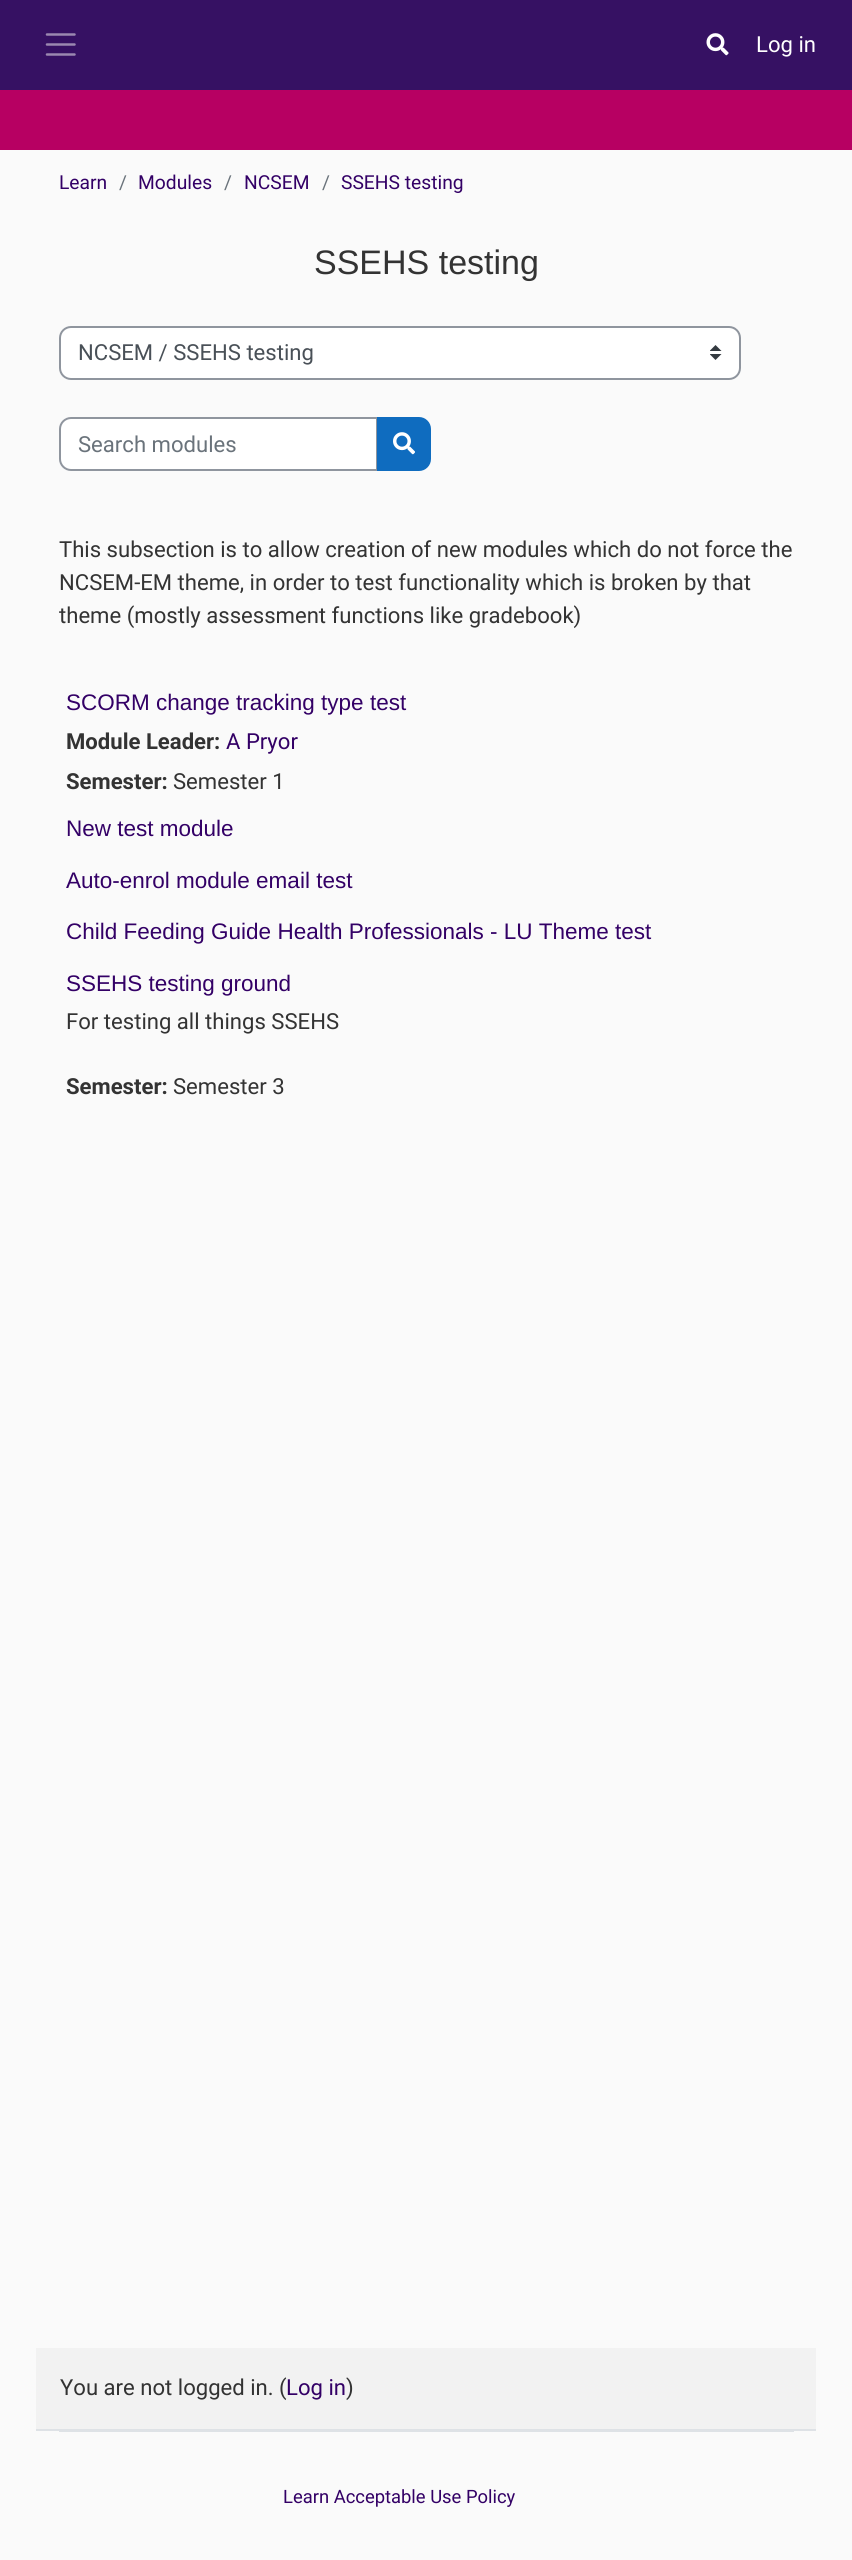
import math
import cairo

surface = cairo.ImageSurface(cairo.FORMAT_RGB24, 852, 2560)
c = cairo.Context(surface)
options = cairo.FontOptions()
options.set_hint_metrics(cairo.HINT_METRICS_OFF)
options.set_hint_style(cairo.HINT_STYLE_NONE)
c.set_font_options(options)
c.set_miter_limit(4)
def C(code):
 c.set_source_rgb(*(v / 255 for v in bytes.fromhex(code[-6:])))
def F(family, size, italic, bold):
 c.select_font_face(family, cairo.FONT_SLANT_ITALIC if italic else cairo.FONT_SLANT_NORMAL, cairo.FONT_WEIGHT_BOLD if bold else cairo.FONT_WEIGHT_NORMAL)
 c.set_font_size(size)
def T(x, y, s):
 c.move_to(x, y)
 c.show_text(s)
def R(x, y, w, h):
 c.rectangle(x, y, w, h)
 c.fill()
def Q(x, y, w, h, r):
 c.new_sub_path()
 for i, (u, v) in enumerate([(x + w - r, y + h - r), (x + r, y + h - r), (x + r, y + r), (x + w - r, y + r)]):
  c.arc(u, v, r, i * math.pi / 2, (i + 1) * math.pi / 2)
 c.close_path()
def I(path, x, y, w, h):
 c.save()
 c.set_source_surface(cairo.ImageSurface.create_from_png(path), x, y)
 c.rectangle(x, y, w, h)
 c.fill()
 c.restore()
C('fafafa')
c.paint()
C('361163')
R(0,0,852,90)
c.new_path()
c.move_to(47,34.5)
c.line_to(74.5,34.5)
c.move_to(47,44.5)
c.line_to(74.5,44.5)
c.move_to(47,54.5)
c.line_to(74.5,54.5)
C('9b88b1')
c.set_line_width(2.5)
c.set_line_cap(cairo.LINE_CAP_ROUND)
c.stroke()
I('1.png',706,33,23,23)
F('Roboto',22.1,0,0)
C('ffffff')
T(756,52,'Log in')
C('b70062')
R(0,90,852,60)
F('Roboto',19.25,0,0)
C('330066')
T(59,189,'Learn')
C('6a737b')
T(119,189,'/')
C('330066')
T(138,189,'Modules')
C('6a737b')
T(224,189,'/')
C('330066')
T(244,189,'NCSEM')
C('6a737b')
T(322,189,'/')
C('330066')
T(341,189,'SSEHS testing')
F('Liberation Sans',34,0,0)
C('333333')
T(314,274,'SSEHS testing')
C('ffffff')
Q(59,326,682,54,12)
c.fill()
I('2.png',710,345,12,15)
Q(60,327,680,52,11)
C('8f959e')
c.set_line_width(2)
c.set_line_cap(cairo.LINE_CAP_BUTT)
c.stroke()
F('Roboto',22.1,0,0)
C('495057')
T(78,360,'NCSEM / SSEHS testing')
C('ffffff')
c.new_path()
c.move_to(71,418)
c.line_to(377,418)
c.line_to(377,470)
c.line_to(71,470)
c.curve_to(65,470,60,465,60,459)
c.line_to(60,429)
c.curve_to(60,423,65,418,71,418)
c.close_path()
c.fill_preserve()
C('8f959e')
c.stroke()
C('6a737b')
T(78,452,'Search modules')
C('0f6cbf')
c.new_path()
c.move_to(378,418)
c.line_to(419,418)
c.curve_to(425,418,430,423,430,429)
c.line_to(430,459)
c.curve_to(430,465,425,470,419,470)
c.line_to(378,470)
c.close_path()
c.fill_preserve()
c.stroke()
I('3.png',393,432,22,23)
C('333333')
T(59,557,'This subsection is to allow creation of new modules which do not force the')
T(59,590,'NCSEM-EM theme, in order to test functionality which is broken by that')
T(59,623,'theme (mostly assessment functions like gradebook)')
F('Liberation Sans',22.5,0,0)
C('330066')
T(66,710,'SCORM change tracking type test')
F('Roboto',22.1,0,1)
C('333333')
T(66,749,'Module Leader:')
F('Roboto',22.1,0,0)
C('330066')
T(226,749,'A Pryor')
F('Roboto',22.1,0,1)
C('333333')
T(66,789,'Semester:')
F('Roboto',22.1,0,0)
T(173,789,'Semester 1')
F('Liberation Sans',22.5,0,0)
C('330066')
T(66,836,'New test module')
T(66,888,'Auto-enrol module email test')
T(66,939,'Child Feeding Guide Health Professionals - LU Theme test')
T(66,991,'SSEHS testing ground')
F('Roboto',22.1,0,0)
C('333333')
T(66,1029,'For testing all things SSEHS')
F('Roboto',22.1,0,1)
T(66,1094,'Semester:')
F('Roboto',22.1,0,0)
T(173,1094,'Semester 3')
C('f2f2f2')
R(36,2348,780,81)
C('dee2e6')
R(36,2429,780,2)
C('333333')
T(60,2395,'You are not logged in. (')
C('330066')
T(286,2395,'Log in')
C('333333')
T(346,2395,')')
C('dee2e6')
R(59,2431,735,1)
F('Roboto',18.4,0,0)
C('330066')
T(283,2503,'Learn Acceptable Use Policy')
surface.write_to_png('o.png')
